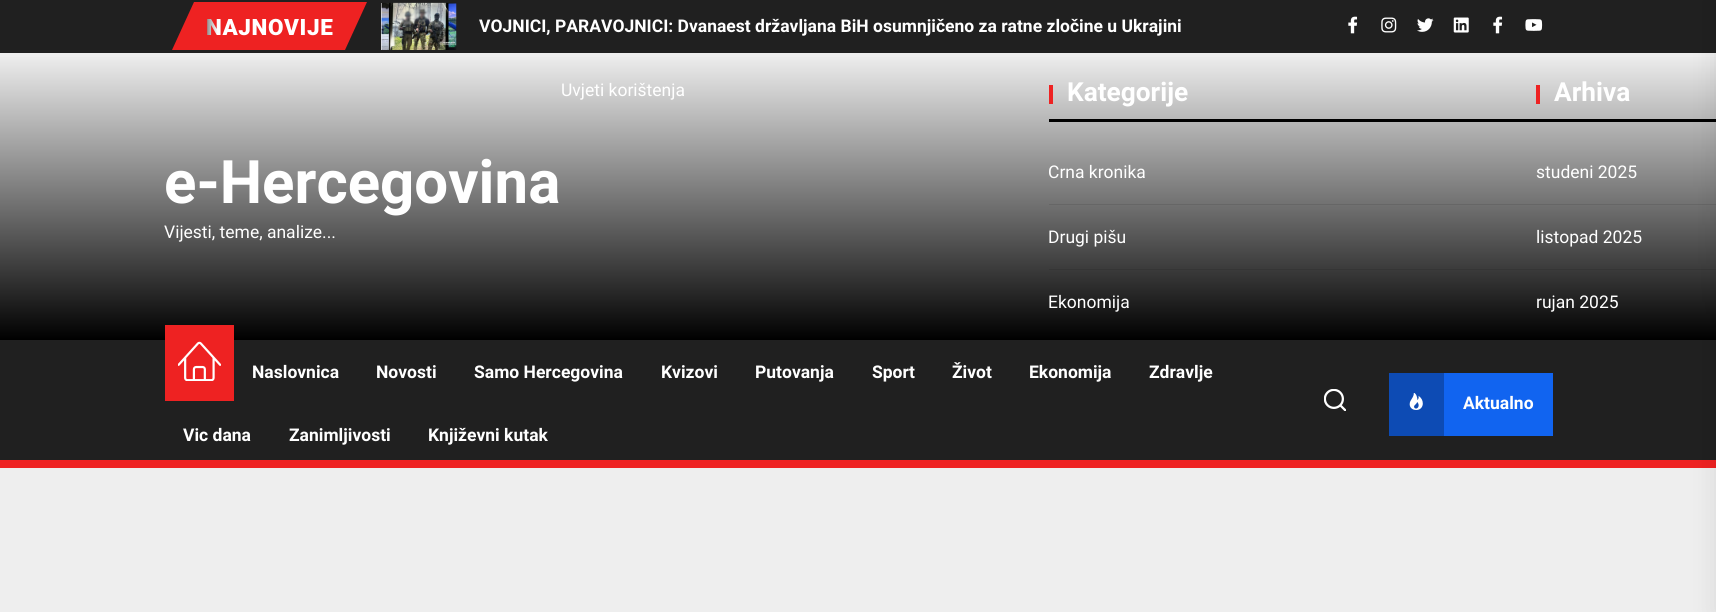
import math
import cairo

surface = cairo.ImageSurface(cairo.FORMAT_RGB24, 1716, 612)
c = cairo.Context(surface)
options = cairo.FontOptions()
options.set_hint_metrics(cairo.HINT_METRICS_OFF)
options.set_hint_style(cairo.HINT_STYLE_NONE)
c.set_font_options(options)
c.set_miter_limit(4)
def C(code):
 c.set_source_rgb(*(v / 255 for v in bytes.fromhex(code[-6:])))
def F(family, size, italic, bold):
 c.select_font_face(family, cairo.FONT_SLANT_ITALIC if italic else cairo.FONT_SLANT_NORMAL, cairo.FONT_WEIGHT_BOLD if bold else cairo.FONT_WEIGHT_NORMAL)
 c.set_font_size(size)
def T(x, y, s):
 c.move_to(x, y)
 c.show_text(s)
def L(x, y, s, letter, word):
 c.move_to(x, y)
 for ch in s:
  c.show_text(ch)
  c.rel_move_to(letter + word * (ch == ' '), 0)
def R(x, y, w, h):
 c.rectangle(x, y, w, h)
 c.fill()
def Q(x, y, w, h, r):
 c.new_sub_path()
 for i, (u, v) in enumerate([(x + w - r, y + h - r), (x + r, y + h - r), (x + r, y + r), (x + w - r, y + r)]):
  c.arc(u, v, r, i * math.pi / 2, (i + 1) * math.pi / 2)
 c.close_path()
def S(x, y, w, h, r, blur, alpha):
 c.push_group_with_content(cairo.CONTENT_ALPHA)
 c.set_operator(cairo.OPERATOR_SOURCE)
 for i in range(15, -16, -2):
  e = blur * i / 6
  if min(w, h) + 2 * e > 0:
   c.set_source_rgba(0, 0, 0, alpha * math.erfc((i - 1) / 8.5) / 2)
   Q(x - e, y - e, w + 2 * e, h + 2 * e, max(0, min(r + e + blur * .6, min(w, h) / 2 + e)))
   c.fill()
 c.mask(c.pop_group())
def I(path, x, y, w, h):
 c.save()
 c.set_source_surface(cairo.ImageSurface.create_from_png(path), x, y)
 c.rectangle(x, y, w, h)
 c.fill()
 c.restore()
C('eeeeee')
c.paint()
C('202020')
R(0,0,1716,53)
C('ee2222')
c.new_path()
c.move_to(194,2)
c.line_to(367,2)
c.line_to(345,50)
c.line_to(172,50)
c.close_path()
c.fill()
F('Roboto Black',22.5,0,0)
gradient = cairo.LinearGradient(183,26,356,26)
gradient.add_color_stop_rgba(0,1,1,1,1)
gradient.add_color_stop_rgba(.1,0.302,0.302,0.302,1)
gradient.add_color_stop_rgba(.2,1,1,1,1)
c.set_source(gradient)
L(206,35,'NAJNOVIJE',.6,0)
C('f1f1f1')
R(381,3,1,47)
I('1.png',381,2,76,48)
F('Roboto',17.5,0,1)
C('ffffff')
T(479,32,'VOJNICI, PARAVOJNICI: Dvanaest državljana BiH osumnjičeno za ratne zločine u Ukrajini')
I('2.png',1348,16,10,18)
I('3.png',1381,17,16,16)
I('4.png',1417,18,17,14)
I('5.png',1453,17,16,16)
I('2.png',1493,16,10,18)
I('6.png',1525,19,18,12)
gradient = cairo.LinearGradient(858,52,858,340)
gradient.add_color_stop_rgba(0,0.941,0.941,0.941,1)
gradient.add_color_stop_rgba(1,0,0,0,1)
c.set_source(gradient)
R(0,57,1716,283)
F('Roboto',60,0,1)
C('ffffff')
T(164,203,'e-Hercegovina')
F('Roboto',17.5,0,0)
T(164,238,'Vijesti, teme, analize...')
T(561,96,'Uvjeti korištenja')
C('ee2222')
R(1049,85,4,19)
F('Roboto',26.25,0,1)
C('ffffff')
T(1067,101,'Kategorije')
F('Roboto',17.5,0,0)
T(1048,178,'Crna kronika')
T(1048,243,'Drugi pišu')
T(1048,308,'Ekonomija')
C('ee2222')
R(1536,85,4,19)
F('Roboto',26.25,0,1)
C('ffffff')
T(1554,101,'Arhiva')
C('000000')
R(1049,119,667,3)
C('666666')
R(1049,204,667,1)
F('Roboto',17.5,0,0)
C('ffffff')
T(1536,178,'studeni 2025')
C('353535')
R(1049,269,667,1)
C('ffffff')
T(1536,243,'listopad 2025')
T(1536,308,'rujan 2025')
C('202020')
R(0,340,1716,120)
C('ee2222')
R(165,325,69,76)
I('7.png',178,341,43,40)
F('Roboto',17.5,0,1)
C('ffffff')
T(252,378,'Naslovnica')
T(376,378,'Novosti')
T(474,378,'Samo Hercegovina')
T(661,378,'Kvizovi')
T(755,378,'Putovanja')
T(872,378,'Sport')
T(952,378,'Život')
T(1029,378,'Ekonomija')
T(1149,378,'Zdravlje')
T(183,441,'Vic dana')
T(289,441,'Zanimljivosti')
T(428,441,'Književni kutak')
I('8.png',1324,389,22,22)
C('1164f0')
R(1444,373,109,63)
C('0d4bb4')
R(1389,373,55,63)
I('9.png',1409,393,14,17)
C('ffffff')
T(1463,409,'Aktualno')
C('ee2222')
R(0,460,1716,8)
C('000000')
S(1716,0,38,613,0,12.5,.1)
surface.write_to_png('o.png')
